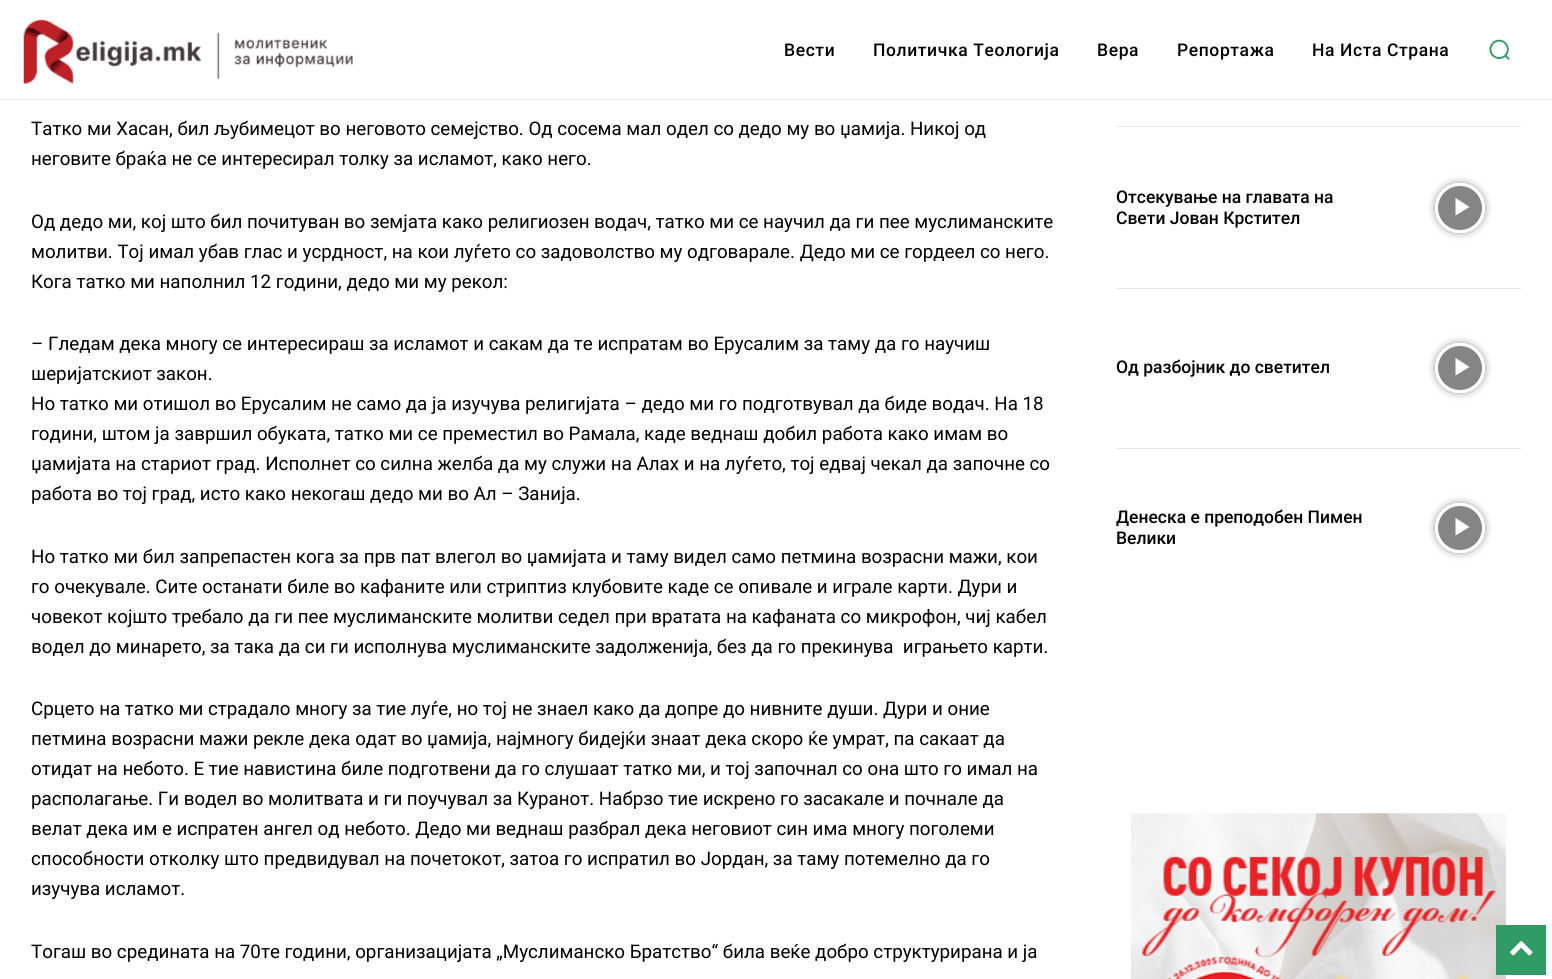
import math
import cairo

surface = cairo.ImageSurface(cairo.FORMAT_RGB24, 1552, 979)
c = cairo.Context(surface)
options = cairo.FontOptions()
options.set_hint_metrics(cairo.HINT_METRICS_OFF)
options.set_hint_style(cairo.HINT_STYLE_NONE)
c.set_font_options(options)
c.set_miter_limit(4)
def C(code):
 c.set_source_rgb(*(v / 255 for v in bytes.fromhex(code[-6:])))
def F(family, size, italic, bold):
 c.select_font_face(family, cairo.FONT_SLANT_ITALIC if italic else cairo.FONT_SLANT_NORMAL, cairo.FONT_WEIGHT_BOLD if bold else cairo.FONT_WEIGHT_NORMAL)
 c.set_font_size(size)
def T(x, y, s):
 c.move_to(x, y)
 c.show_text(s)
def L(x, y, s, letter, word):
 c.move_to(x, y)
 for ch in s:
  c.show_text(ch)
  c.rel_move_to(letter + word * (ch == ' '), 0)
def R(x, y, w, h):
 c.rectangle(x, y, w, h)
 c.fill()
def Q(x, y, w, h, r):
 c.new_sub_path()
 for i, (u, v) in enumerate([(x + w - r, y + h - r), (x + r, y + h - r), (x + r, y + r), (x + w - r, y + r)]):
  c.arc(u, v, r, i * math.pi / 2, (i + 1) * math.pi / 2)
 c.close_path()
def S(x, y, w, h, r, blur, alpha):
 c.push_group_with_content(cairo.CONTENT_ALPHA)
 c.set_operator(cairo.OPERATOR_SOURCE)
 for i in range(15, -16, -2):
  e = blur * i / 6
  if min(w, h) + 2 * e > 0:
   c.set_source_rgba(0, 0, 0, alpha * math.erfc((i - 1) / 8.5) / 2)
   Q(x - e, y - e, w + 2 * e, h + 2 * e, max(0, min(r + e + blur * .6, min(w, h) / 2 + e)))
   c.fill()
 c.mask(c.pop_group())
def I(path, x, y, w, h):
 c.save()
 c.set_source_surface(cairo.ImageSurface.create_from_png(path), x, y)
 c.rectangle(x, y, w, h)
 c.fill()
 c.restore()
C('ffffff')
c.paint()
C('eaeaea')
R(0,99,1552,1)
I('1.png',23,19,331,65)
F('Roboto Medium',17.5,0,0)
C('000000')
L(784,56,'Вести',.6,0)
L(873,56,'Политичка Теологија',.6,0)
L(1097,56,'Вера',.6,0)
L(1177,56,'Репортажа',.6,0)
L(1312,56,'На Иста Страна',.6,0)
I('2.png',1489,39,21,21)
F('Roboto',18.75,0,0)
T(31,135,'Татко ми Хасан, бил љубимецот во неговото семејство. Од сосема мал одел со дедо му во џамија. Никој од')
T(31,165,'неговите браќа не се интересирал толку за исламот, како него.')
T(31,228,'Од дедо ми, кој што бил почитуван во земјата како религиозен водач, татко ми се научил да ги пее муслиманските')
T(31,258,'молитви. Тој имал убав глас и усрдност, на кои луѓето со задоволство му одговарале. Дедо ми се гордеел со него.')
T(31,288,'Кога татко ми наполнил 12 години, дедо ми му рекол:')
T(31,350,'– Гледам дека многу се интересираш за исламот и сакам да те испратам во Ерусалим за таму да го научиш')
T(31,380,'шеријатскиот закон.')
T(31,410,'Но татко ми отишол во Ерусалим не само да ја изучува религијата – дедо ми го подготвувал да биде водач. На 18')
T(31,440,'години, штом ја завршил обуката, татко ми се преместил во Рамала, каде веднаш добил работа како имам во')
T(31,470,'џамијата на стариот град. Исполнет со силна желба да му служи на Алах и на луѓето, тој едвај чекал да започне со')
T(31,500,'работа во тој град, исто како некогаш дедо ми во Ал – Занија.')
T(31,563,'Но татко ми бил запрепастен кога за прв пат влегол во џамијата и таму видел само петмина возрасни мажи, кои')
T(31,593,'го очекувале. Сите останати биле во кафаните или стриптиз клубовите каде се опивале и играле карти. Дури и')
T(31,623,'човекот којшто требало да ги пее муслиманските молитви седел при вратата на кафаната со микрофон, чиј кабел')
T(31,653,'водел до минарето, за така да си ги исполнува муслиманските задолженија, без да го прекинува  играњето карти.')
T(31,715,'Срцето на татко ми страдало многу за тие луѓе, но тој не знаел како да допре до нивните души. Дури и оние')
T(31,745,'петмина возрасни мажи рекле дека одат во џамија, најмногу бидејќи знаат дека скоро ќе умрат, па сакаат да')
T(31,775,'отидат на небото. Е тие навистина биле подготвени да го слушаат татко ми, и тој започнал со она што го имал на')
T(31,805,'располагање. Ги водел во молитвата и ги поучувал за Куранот. Набрзо тие искрено го засакале и почнале да')
T(31,835,'велат дека им е испратен ангел од небото. Дедо ми веднаш разбрал дека неговиот син има многу поголеми')
T(31,865,'способности отколку што предвидувал на почетокот, затоа го испратил во Јордан, за таму потемелно да го')
T(31,895,'изучува исламот.')
T(31,958,'Тогаш во средината на 70те години, организацијата „Муслиманско Братство“ била веќе добро структурирана и ја')
C('eaeaea')
R(1116,126,405,1)
R(1116,288,405,1)
F('Roboto Medium',17.5,0,0)
C('000000')
T(1116,203,'Отсекување на главата на')
T(1116,224,'Свети Јован Крстител')
c.save()
c.set_fill_rule(cairo.FILL_RULE_EVEN_ODD)
c.new_path()
c.move_to(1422,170)
c.line_to(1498,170)
c.line_to(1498,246)
c.line_to(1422,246)
c.close_path()
c.move_to(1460,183)
c.curve_to(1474,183,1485,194,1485,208)
c.curve_to(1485,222,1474,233,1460,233)
c.curve_to(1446,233,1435,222,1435,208)
c.curve_to(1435,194,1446,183,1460,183)
c.close_path()
c.clip()
C('000000')
S(1435,183,50,50,25,4,.4)
c.restore()
c.set_source_rgba(0,0,0,0.48)
c.arc(1460,208,23.5,0,2 * math.pi)
c.fill_preserve()
C('ffffff')
c.set_line_width(3)
c.stroke()
c.new_path()
c.move_to(1455.5,198)
c.line_to(1455.5,215.5)
c.line_to(1469.5,207)
c.close_path()
c.fill()
C('eaeaea')
R(1116,448,405,1)
C('000000')
T(1116,373,'Од разбојник до светител')
c.save()
c.set_fill_rule(cairo.FILL_RULE_EVEN_ODD)
c.new_path()
c.move_to(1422,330)
c.line_to(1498,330)
c.line_to(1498,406)
c.line_to(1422,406)
c.close_path()
c.move_to(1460,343)
c.curve_to(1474,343,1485,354,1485,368)
c.curve_to(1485,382,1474,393,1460,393)
c.curve_to(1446,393,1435,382,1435,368)
c.curve_to(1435,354,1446,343,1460,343)
c.close_path()
c.clip()
C('000000')
S(1435,343,50,50,25,4,.4)
c.restore()
c.set_source_rgba(0,0,0,0.48)
c.arc(1460,368,23.5,0,2 * math.pi)
c.fill_preserve()
C('ffffff')
c.stroke()
c.new_path()
c.move_to(1455.5,358)
c.line_to(1455.5,375.5)
c.line_to(1469.5,367)
c.close_path()
c.fill()
C('000000')
T(1116,523,'Денеска е преподобен Пимен')
T(1116,544,'Велики')
c.save()
c.set_fill_rule(cairo.FILL_RULE_EVEN_ODD)
c.new_path()
c.move_to(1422,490)
c.line_to(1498,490)
c.line_to(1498,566)
c.line_to(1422,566)
c.close_path()
c.move_to(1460,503)
c.curve_to(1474,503,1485,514,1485,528)
c.curve_to(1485,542,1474,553,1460,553)
c.curve_to(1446,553,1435,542,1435,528)
c.curve_to(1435,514,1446,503,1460,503)
c.close_path()
c.clip()
C('000000')
S(1435,503,50,50,25,4,.4)
c.restore()
c.set_source_rgba(0,0,0,0.48)
c.arc(1460,528,23.5,0,2 * math.pi)
c.fill_preserve()
C('ffffff')
c.stroke()
c.new_path()
c.move_to(1455.5,518)
c.line_to(1455.5,535.5)
c.line_to(1469.5,527)
c.close_path()
c.fill()
I('3.png',1131,813,375,166)
C('309b65')
R(1496,925,50,50)
I('4.png',1510,941,23,15)
surface.write_to_png('o.png')
